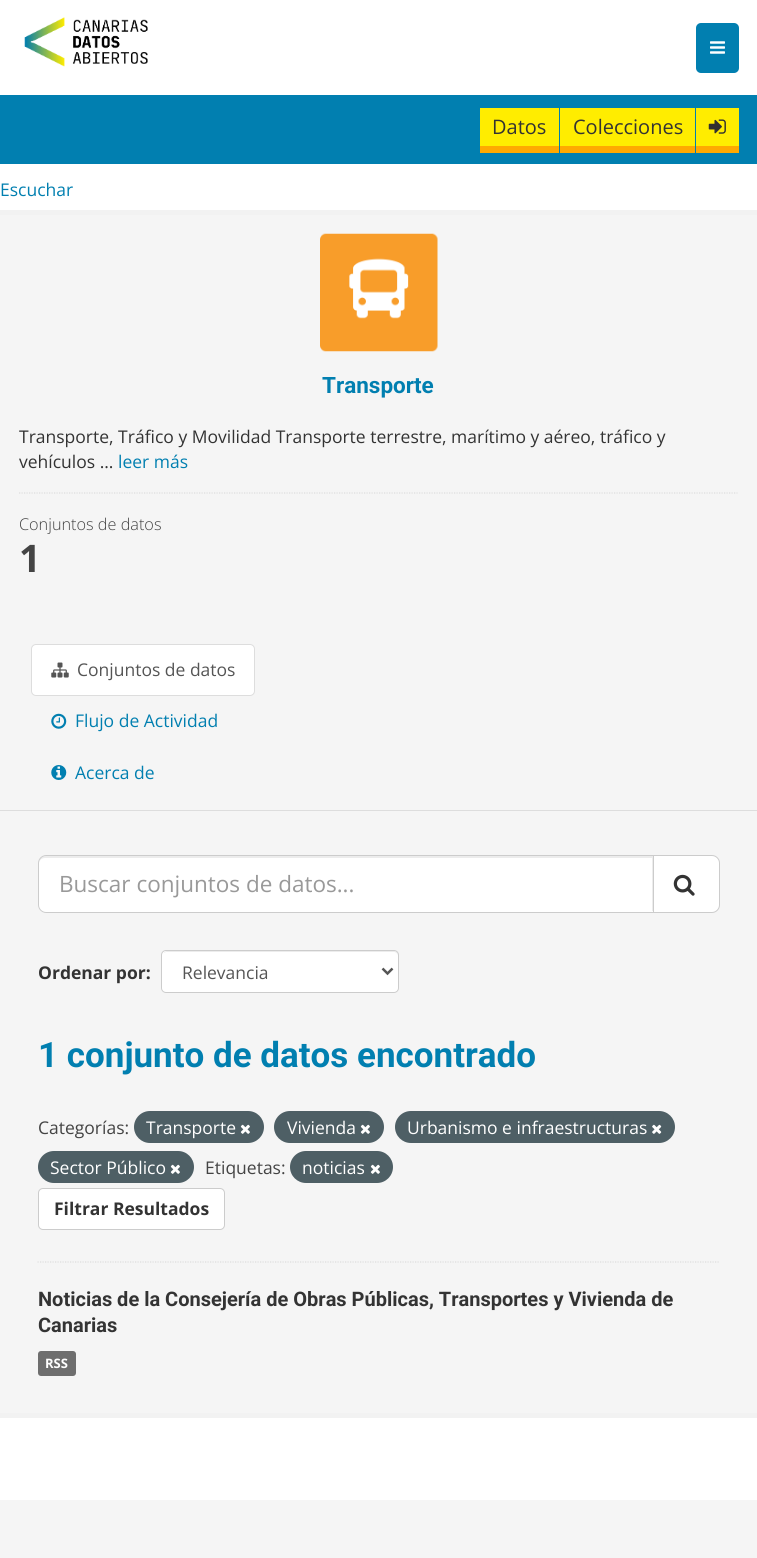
import math
import cairo

surface = cairo.ImageSurface(cairo.FORMAT_RGB24, 757, 1558)
c = cairo.Context(surface)
options = cairo.FontOptions()
options.set_hint_metrics(cairo.HINT_METRICS_OFF)
options.set_hint_style(cairo.HINT_STYLE_NONE)
c.set_font_options(options)
c.set_miter_limit(4)
def C(code):
 c.set_source_rgb(*(v / 255 for v in bytes.fromhex(code[-6:])))
def F(family, size, italic, bold):
 c.select_font_face(family, cairo.FONT_SLANT_ITALIC if italic else cairo.FONT_SLANT_NORMAL, cairo.FONT_WEIGHT_BOLD if bold else cairo.FONT_WEIGHT_NORMAL)
 c.set_font_size(size)
def T(x, y, s):
 c.move_to(x, y)
 c.show_text(s)
def R(x, y, w, h):
 c.rectangle(x, y, w, h)
 c.fill()
def Q(x, y, w, h, r):
 c.new_sub_path()
 for i, (u, v) in enumerate([(x + w - r, y + h - r), (x + r, y + h - r), (x + r, y + r), (x + w - r, y + r)]):
  c.arc(u, v, r, i * math.pi / 2, (i + 1) * math.pi / 2)
 c.close_path()
def I(path, x, y, w, h):
 c.save()
 c.set_source_surface(cairo.ImageSurface.create_from_png(path), x, y)
 c.rectangle(x, y, w, h)
 c.fill()
 c.restore()
C('ffffff')
c.paint()
I('1.png',24,17,124,50)
C('017fb0')
Q(696,23,43,50,5)
c.fill()
I('2.png',710,41,15,13)
R(0,95,757,69)
C('ffa900')
c.new_path()
c.move_to(480,146)
c.line_to(480,153)
c.line_to(559,153)
c.line_to(559,114)
c.line_to(559,146)
c.close_path()
c.fill()
C('ffed00')
R(480,108,79,38)
F('Open Sans',20,0,0)
C('333333')
T(492,134,'Datos')
C('ffa900')
R(560,146,135,7)
C('ffed00')
R(560,108,135,38)
C('333333')
T(573,134,'Colecciones')
C('ffa900')
c.new_path()
c.move_to(696,114)
c.line_to(696,153)
c.line_to(739,153)
c.line_to(739,114)
c.line_to(739,146)
c.line_to(696,146)
c.close_path()
c.fill()
C('ffed00')
R(696,108,43,38)
I('3.png',708,119,18,15)
F('Open Sans',17.5,0,0)
C('017fb0')
T(0,196,'Escuchar')
c.rectangle(-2.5,212.5,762,1203)
C('f2f2f2')
c.set_line_width(5)
c.stroke()
C('f5f5f5')
R(0,215,757,1198)
I('4.png',320,233,118,119)
F('Roboto',22.5,0,1)
C('017fb0')
T(322,393,'Transporte')
F('Open Sans',17.5,0,0)
C('333333')
T(19,443,'Transporte, Tráfico y Movilidad Transporte terrestre, marítimo y aéreo, tráfico y')
T(19,468,'vehículos ...')
C('017fb0')
T(118,468,'leer más')
c.new_path()
c.move_to(19,493)
c.line_to(737.5,493)
C('dddddd')
c.set_line_width(1.2)
c.set_dash([1.25,1.25])
c.stroke()
F('Open Sans Light',16.25,0,0)
C('444444')
T(19,530,'Conjuntos de datos')
F('Open Sans',38,0,1)
T(19,572,'1')
C('dddddd')
R(0,810,757,1)
C('ffffff')
Q(31.5,644.5,223,51,4.5)
c.fill_preserve()
C('dddddd')
c.set_line_width(1)
c.set_dash([])
c.stroke()
I('5.png',51,662,18,16)
F('Open Sans',17.5,0,0)
C('555555')
T(77,676,'Conjuntos de datos')
I('6.png',51,713,16,16)
C('017fb0')
T(75,727,'Flujo de Actividad')
I('7.png',51,765,16,15)
T(75,779,'Acerca de')
c.new_path()
c.move_to(37.5,1262)
c.line_to(720,1262)
C('dddddd')
c.set_line_width(1.2)
c.set_dash([1.25,1.25])
c.stroke()
C('ffffff')
c.new_path()
c.move_to(46,855)
c.line_to(654,855)
c.line_to(654,913)
c.line_to(46,913)
c.curve_to(41.5,913,38,909.5,38,905)
c.line_to(38,863)
c.curve_to(38,858.5,41.5,855,46,855)
c.close_path()
c.fill()
C('ececec')
c.new_path()
c.move_to(45,858)
c.line_to(652,858)
c.line_to(652,911)
c.line_to(653,911)
c.line_to(653,856)
c.line_to(45,856)
c.curve_to(40,856,39,860,39,864)
c.curve_to(39,860,42,858,45,858)
c.close_path()
c.fill()
c.new_path()
c.move_to(46,855.5)
c.line_to(653.5,855.5)
c.line_to(653.5,912.5)
c.line_to(46,912.5)
c.curve_to(42,912.5,38.5,909,38.5,905)
c.line_to(38.5,863)
c.curve_to(38.5,859,42,855.5,46,855.5)
c.close_path()
C('cccccc')
c.set_line_width(1)
c.set_dash([])
c.stroke()
F('Open Sans',22.5,0,0)
C('999999')
T(59,892,'Buscar conjuntos de datos...')
C('ffffff')
c.new_path()
c.move_to(653.5,855.5)
c.line_to(712,855.5)
c.curve_to(716,855.5,719.5,859,719.5,863)
c.line_to(719.5,905)
c.curve_to(719.5,909,716,912.5,712,912.5)
c.line_to(653.5,912.5)
c.close_path()
c.fill_preserve()
C('cccccc')
c.stroke()
I('8.png',673,874,22,22)
F('Open Sans',17.5,0,1)
C('333333')
T(38,979,'Ordenar por:')
C('ffffff')
Q(161,950,238,43,5)
c.fill()
C('ececec')
c.new_path()
c.move_to(166,952)
c.line_to(394,952)
c.curve_to(396,952,398,954,398,956)
c.line_to(398,955)
c.curve_to(398,953,396,951,394,951)
c.line_to(167,951)
c.curve_to(166,951,164,952,164,953)
c.close_path()
c.fill()
Q(161.5,950.5,237,42,4.5)
C('cccccc')
c.stroke()
c.new_path()
c.move_to(382.5,968.5)
c.line_to(387.5,973.5)
c.line_to(392.5,968.5)
C('555555')
c.set_line_width(2.5)
c.stroke()
F('Open Sans',17.5,0,0)
T(182,979,'Relevancia')
F('Roboto',35,0,1)
C('017fb0')
T(38,1067,'1 conjunto de datos encontrado')
F('Open Sans',17.5,0,0)
C('444444')
T(38,1134,'Categorías:')
C('4e5f65')
Q(134,1111,130,32,16)
c.fill()
C('ffffff')
T(146,1134,'Transporte')
I('9.png',240,1124,10,10)
C('4e5f65')
Q(274,1111,110,32,16)
c.fill()
C('ffffff')
T(287,1134,'Vivienda')
I('9.png',360,1124,10,10)
C('4e5f65')
Q(395,1111,280,32,16)
c.fill()
C('ffffff')
T(407,1134,'Urbanismo e infraestructuras')
I('10.png',652,1124,10,10)
C('4e5f65')
Q(38,1151,156,32,16)
c.fill()
C('ffffff')
T(50,1174,'Sector Público')
I('9.png',170,1164,10,10)
C('444444')
T(205,1174,'Etiquetas:')
C('4e5f65')
Q(290,1151,103,32,16)
c.fill()
C('ffffff')
T(302,1174,'noticias')
I('9.png',370,1164,10,10)
Q(38.5,1188.5,186,41,4.5)
c.fill_preserve()
C('cccccc')
c.set_line_width(1)
c.stroke()
F('Open Sans',17.5,0,1)
C('333333')
T(54,1215,'Filtrar Resultados')
F('Roboto',20,0,1)
T(38,1306,'Noticias de la Consejería de Obras Públicas, Transportes y Vivienda de')
T(38,1332,'Canarias')
C('6e6e6e')
Q(38,1351,38,25,3)
c.fill()
F('Open Sans',13,0,1)
C('ffffff')
T(45,1368,'RSS')
C('f5f5f5')
R(0,1500,757,58)
surface.write_to_png('o.png')
